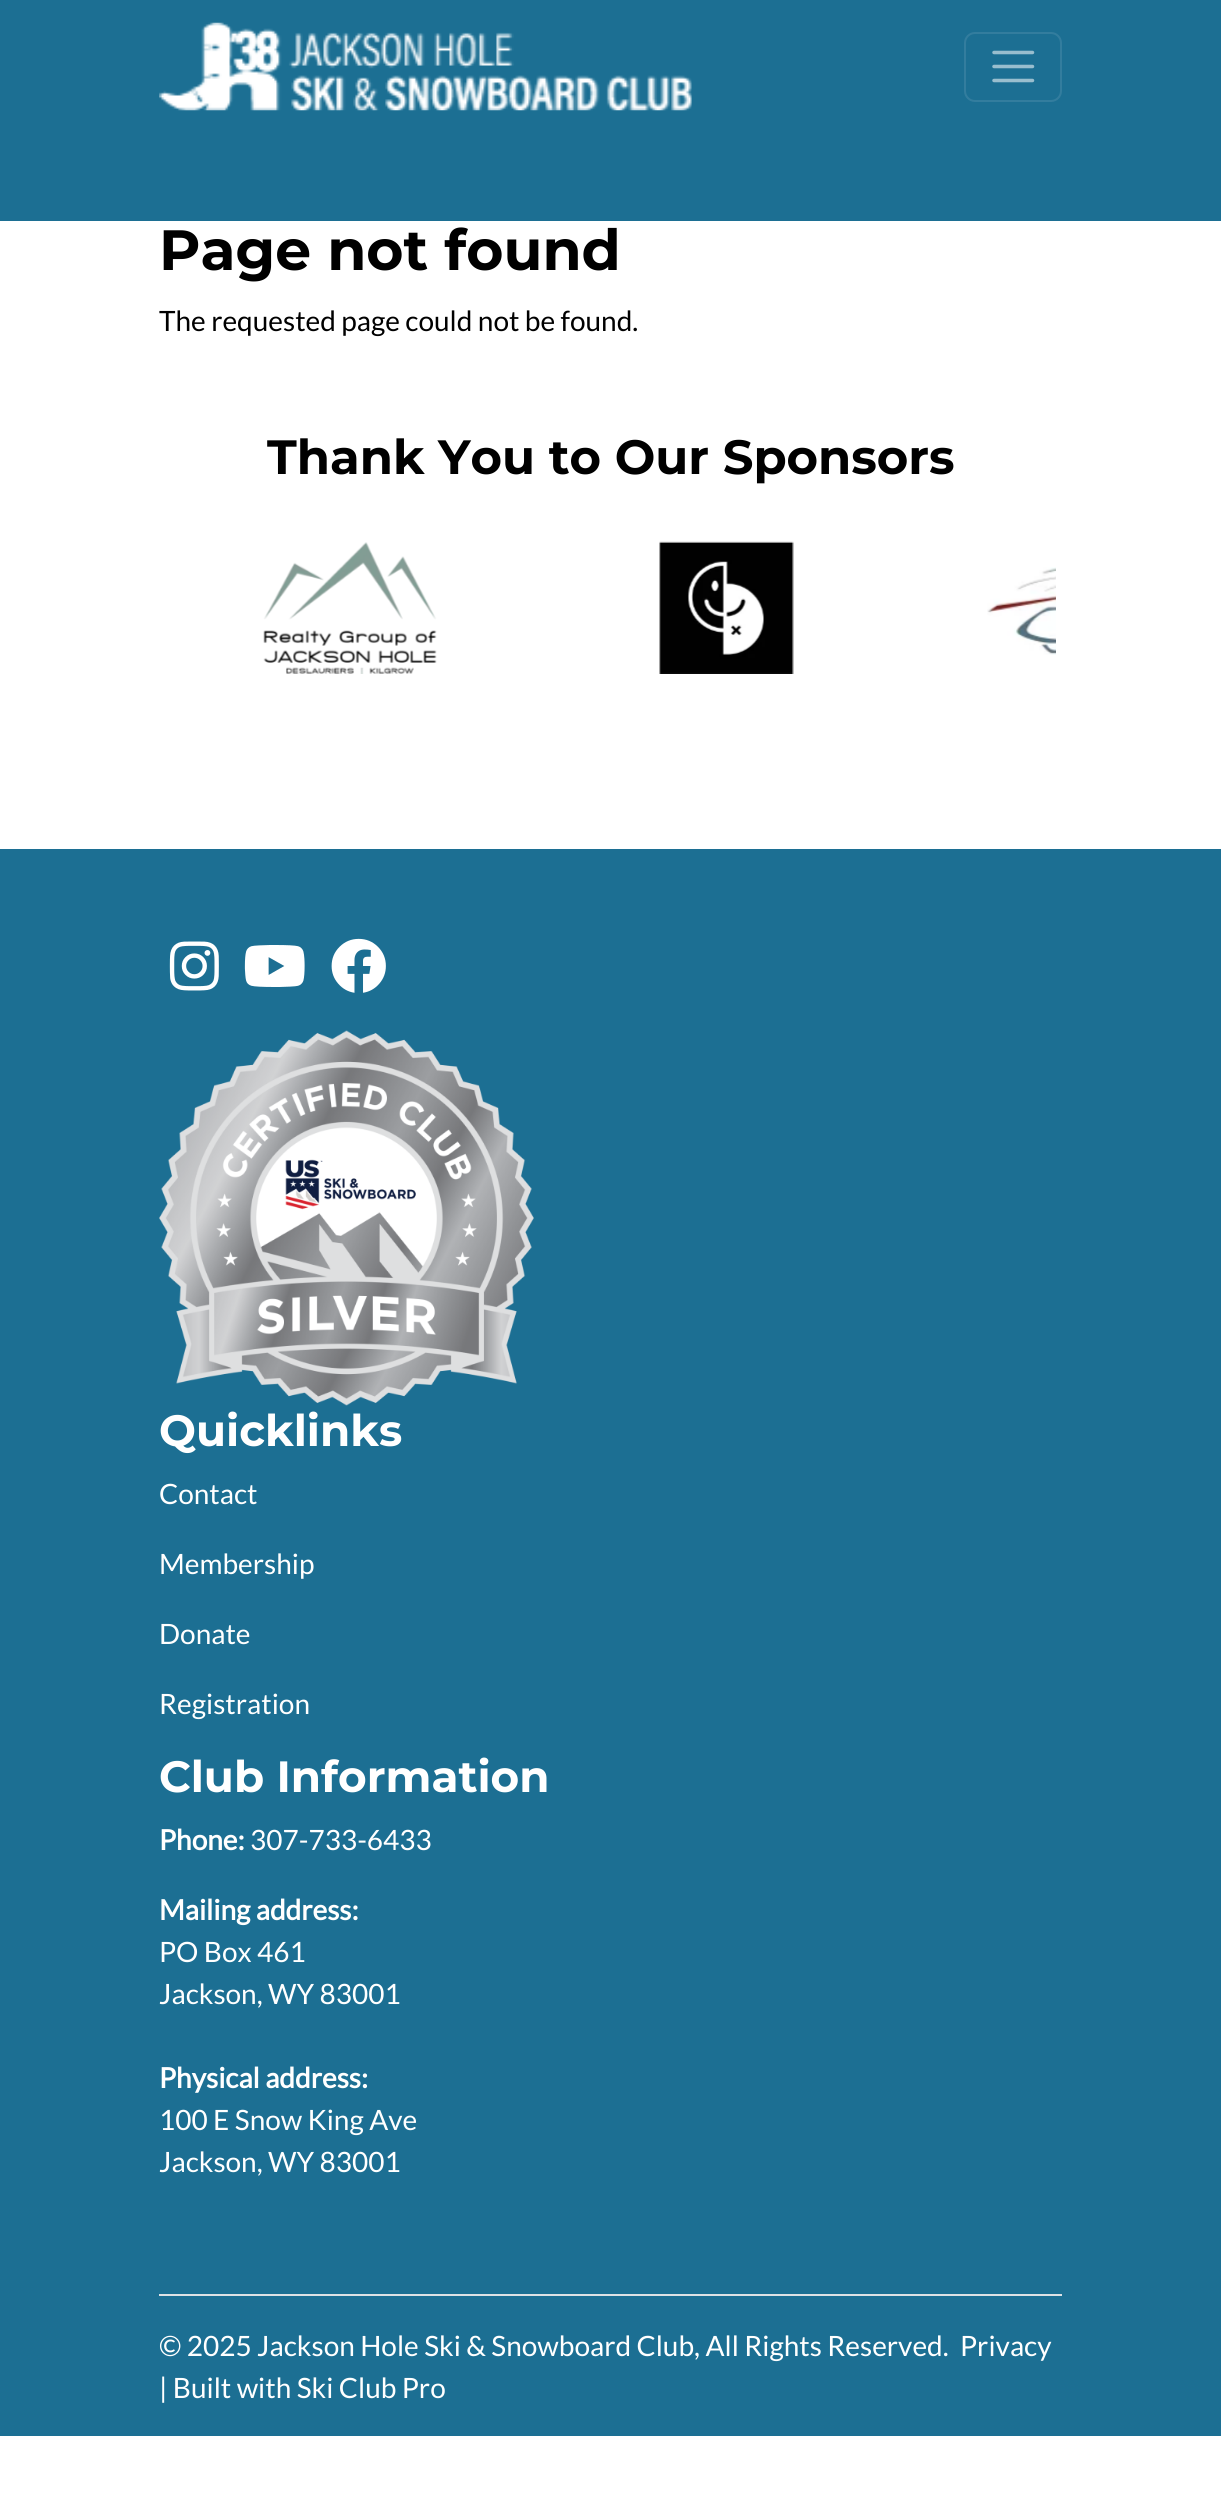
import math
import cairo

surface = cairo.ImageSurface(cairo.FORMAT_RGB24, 1221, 2513)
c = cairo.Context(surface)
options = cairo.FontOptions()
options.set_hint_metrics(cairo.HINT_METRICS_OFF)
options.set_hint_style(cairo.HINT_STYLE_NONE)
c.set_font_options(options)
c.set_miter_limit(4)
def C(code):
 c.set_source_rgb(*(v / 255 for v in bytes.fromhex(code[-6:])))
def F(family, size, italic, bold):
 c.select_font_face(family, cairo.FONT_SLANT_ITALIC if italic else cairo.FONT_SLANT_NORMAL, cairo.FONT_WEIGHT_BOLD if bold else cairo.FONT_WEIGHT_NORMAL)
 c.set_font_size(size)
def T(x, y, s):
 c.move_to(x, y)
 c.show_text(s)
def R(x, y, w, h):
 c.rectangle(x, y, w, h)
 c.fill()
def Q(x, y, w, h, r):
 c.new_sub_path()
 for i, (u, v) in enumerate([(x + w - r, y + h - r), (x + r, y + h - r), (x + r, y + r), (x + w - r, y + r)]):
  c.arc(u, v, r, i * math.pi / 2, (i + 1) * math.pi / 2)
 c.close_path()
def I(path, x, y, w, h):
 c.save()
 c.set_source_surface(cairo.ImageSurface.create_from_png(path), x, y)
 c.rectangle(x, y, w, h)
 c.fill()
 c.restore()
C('ffffff')
c.paint()
C('1c6f93')
R(0,0,1221,221)
I('1.png',159,22,533,89)
Q(965,33,96,68,10)
C('337d9e')
c.stroke()
c.new_path()
c.move_to(994,52.5)
c.line_to(1032.5,52.5)
c.move_to(994,66.5)
c.line_to(1032.5,66.5)
c.move_to(994,80.5)
c.line_to(1032.5,80.5)
C('99bece')
c.set_line_width(3.5)
c.set_line_cap(cairo.LINE_CAP_ROUND)
c.stroke()
F('Montserrat',56.75,0,1)
C('000000')
T(159,270,'Page not found')
F('Lato',28,0,0)
T(159,331,'The requested page could not be found.')
F('Montserrat',48.1,0,1)
T(267,474,'Thank You to Our Sponsors')
I('2.png',263,542,174,132)
I('3.png',659,541,135,133)
I('4.png',987,567,69,88)
C('1c6f93')
R(0,849,1221,1587)
I('5.png',169,941,50,50)
I('6.png',244,945,61,42)
I('7.png',331,938,55,55)
I('8.png',159,1030,375,376)
F('Montserrat',43.75,0,1)
C('ffffff')
T(159,1446,'Quicklinks')
F('Lato',28,0,0)
T(159,1504,'Contact')
T(159,1574,'Membership')
T(159,1644,'Donate')
T(159,1714,'Registration')
F('Montserrat',43.75,0,1)
T(159,1792,'Club Information')
F('Lato',28,0,1)
T(159,1850,'Phone:')
F('Lato',28,0,0)
T(250,1850,'307-733-6433')
F('Lato',28,0,1)
T(159,1920,'Mailing address:')
F('Lato',28,0,0)
T(159,1962,'PO Box 461')
T(159,2004,'Jackson, WY 83001')
F('Lato',28,0,1)
T(159,2088,'Physical address:')
F('Lato',28,0,0)
T(159,2130,'100 E Snow King Ave')
T(159,2172,'Jackson, WY 83001')
C('dee2e6')
R(159,2294,903,2)
C('ffffff')
T(159,2356,'© 2025 Jackson Hole Ski & Snowboard Club, All Rights Reserved.')
T(960,2356,'Privacy')
T(159,2398,'| Built with Ski Club Pro')
surface.write_to_png('o.png')
